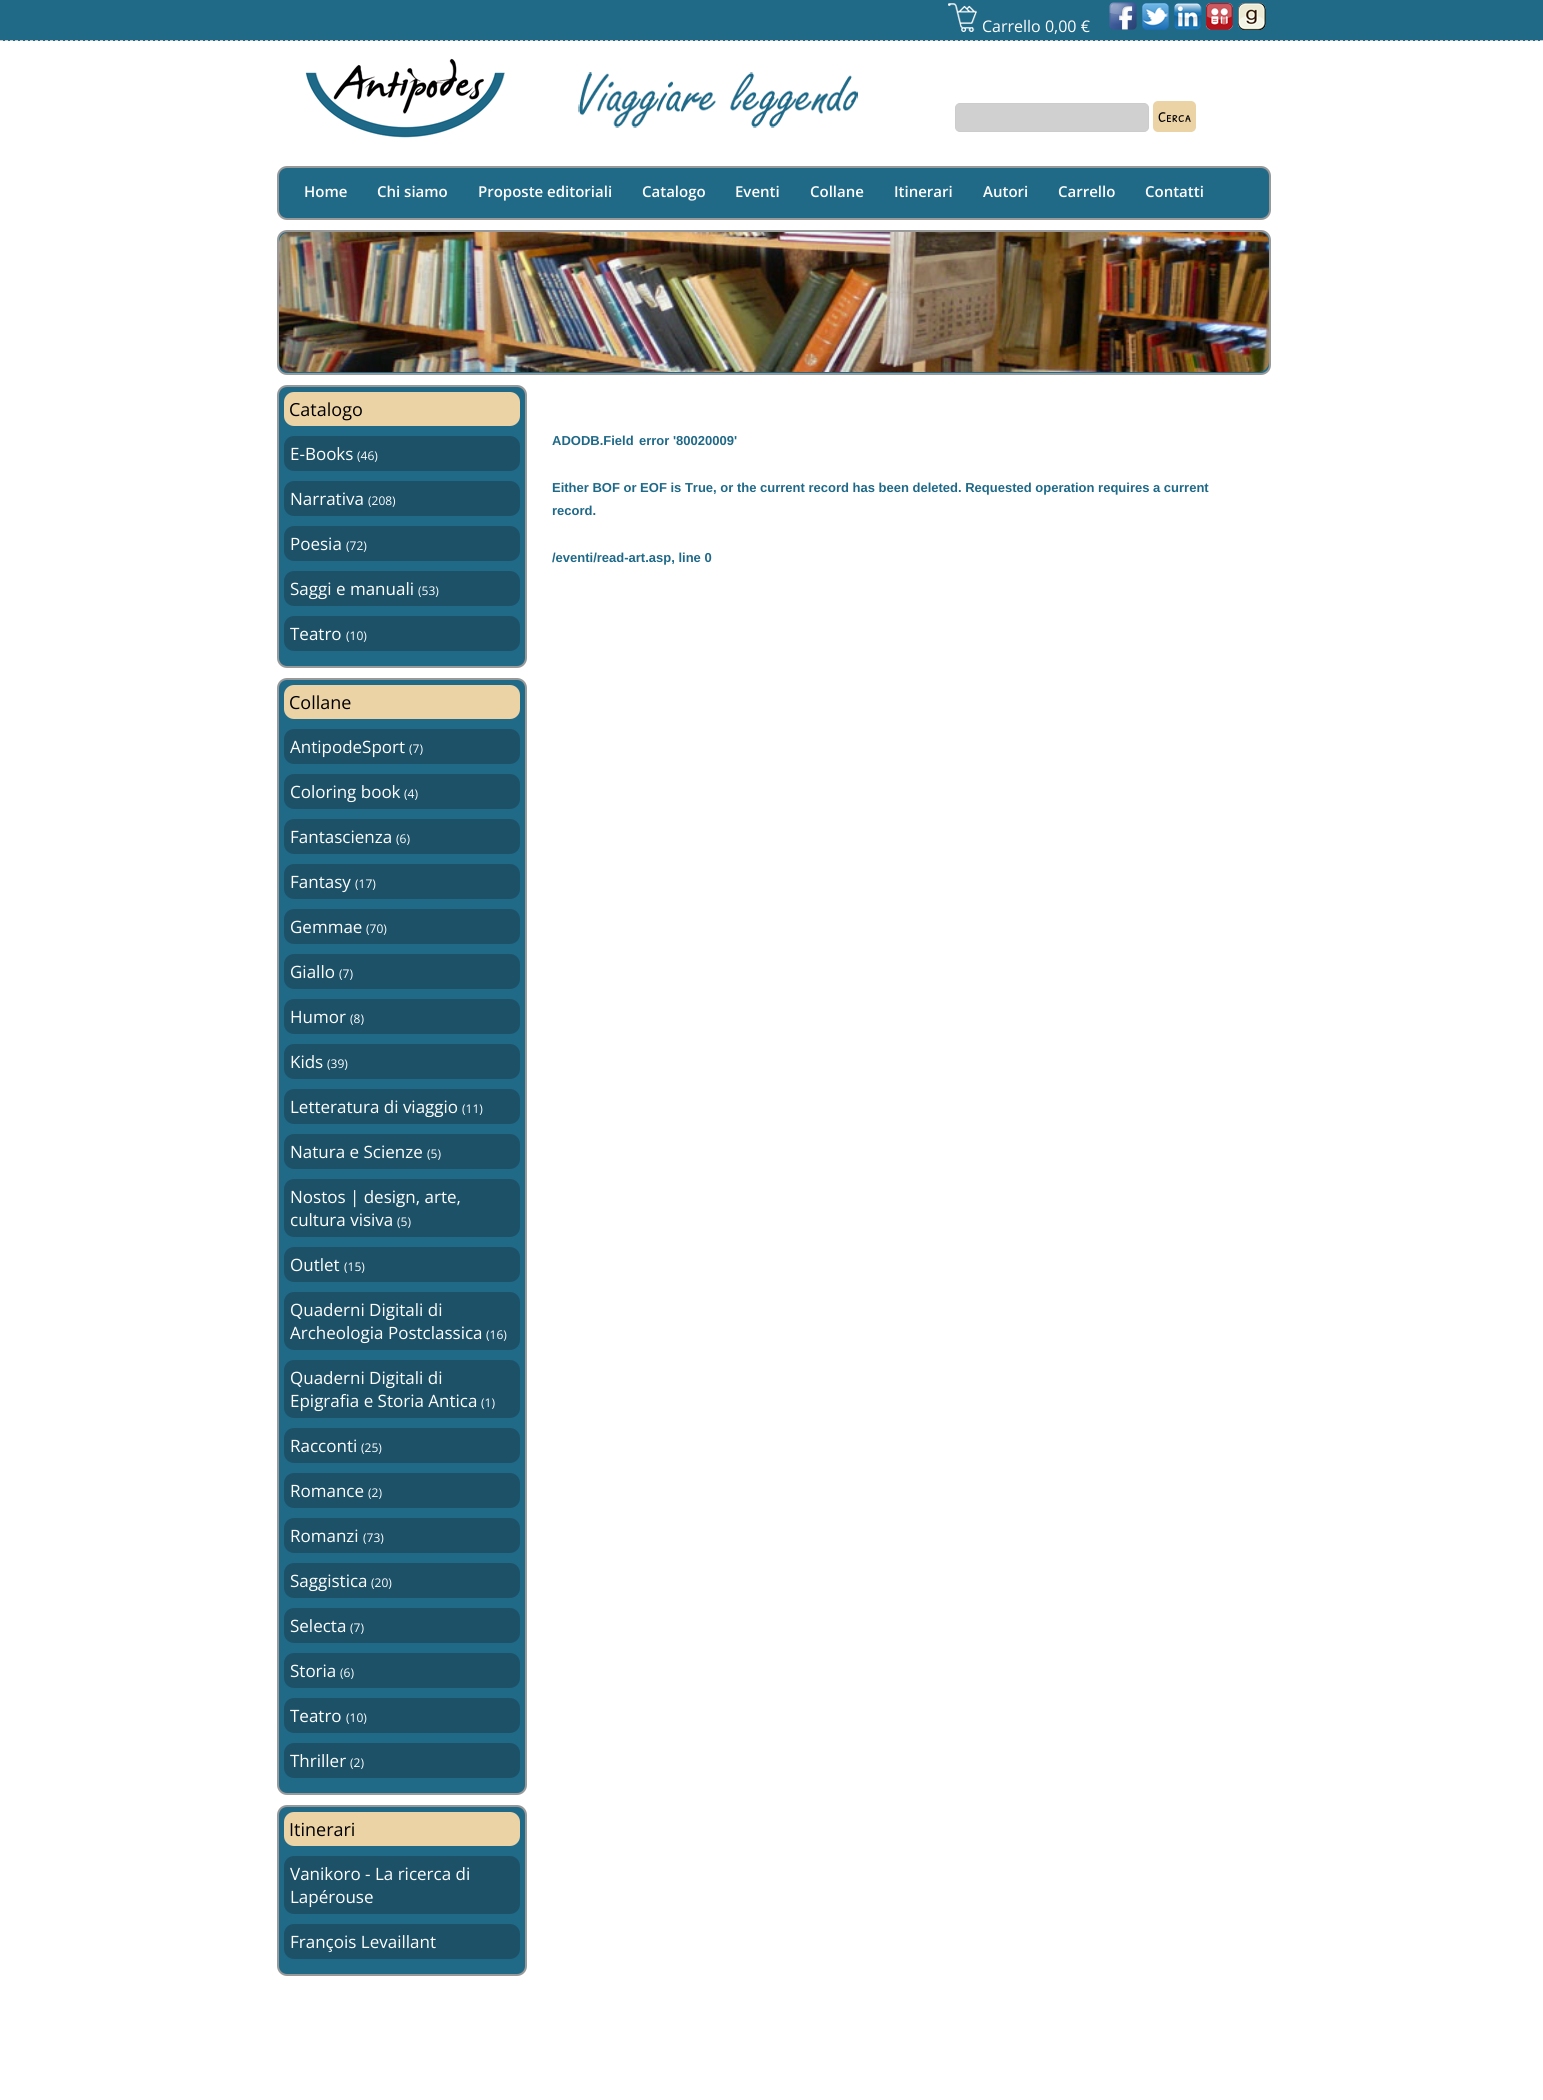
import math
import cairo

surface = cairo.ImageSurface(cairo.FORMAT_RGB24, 1543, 2100)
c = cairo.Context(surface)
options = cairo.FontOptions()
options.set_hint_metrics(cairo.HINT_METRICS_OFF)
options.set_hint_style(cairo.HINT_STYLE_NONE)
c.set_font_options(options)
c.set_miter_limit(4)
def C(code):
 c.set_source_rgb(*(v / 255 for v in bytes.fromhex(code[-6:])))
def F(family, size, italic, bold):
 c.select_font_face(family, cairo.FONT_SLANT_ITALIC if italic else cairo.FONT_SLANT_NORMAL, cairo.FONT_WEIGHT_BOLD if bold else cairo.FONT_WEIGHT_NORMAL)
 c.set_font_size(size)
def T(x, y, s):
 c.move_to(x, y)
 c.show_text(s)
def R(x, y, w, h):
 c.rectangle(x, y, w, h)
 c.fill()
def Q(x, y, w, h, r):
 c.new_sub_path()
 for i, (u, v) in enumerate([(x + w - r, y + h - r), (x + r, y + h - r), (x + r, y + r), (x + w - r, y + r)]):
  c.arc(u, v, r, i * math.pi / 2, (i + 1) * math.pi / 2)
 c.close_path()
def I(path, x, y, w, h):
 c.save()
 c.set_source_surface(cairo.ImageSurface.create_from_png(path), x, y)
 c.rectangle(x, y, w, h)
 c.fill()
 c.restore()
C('ffffff')
c.paint()
C('206a88')
R(0,0,1543,41)
c.new_path()
c.move_to(0,40.5)
c.line_to(1543,40.5)
C('cccccc')
c.set_line_width(1)
c.set_dash([3,2])
c.stroke()
I('1.png',948,3,29,29)
F('Open Sans',16,0,0)
C('ffffff')
T(982,32,'Carrello 0,00 €')
I('2.png',1109,2,28,28)
I('3.png',1142,3,27,27)
I('4.png',1174,3,28,27)
I('5.png',1206,3,27,27)
I('6.png',1238,3,28,27)
I('7.png',305,58,200,80)
I('8.png',578,72,280,56)
C('d0d0d0')
Q(955.5,103.5,193,28,4.5)
c.fill_preserve()
C('cccccc')
c.set_dash([])
c.stroke()
C('ecd3a6')
Q(1153,101,43,31,5)
c.fill()
F('Patrick Hand SC',15,0,0)
C('000000')
T(1158,122,'Cerca')
C('206a88')
Q(278,167,992,52,9)
c.fill_preserve()
C('999999')
c.set_line_width(2)
c.stroke()
F('Open Sans SemiBold',15,0,0)
C('ffffff')
T(304,197,'Home')
T(377,197,'Chi siamo')
T(478,197,'Proposte editoriali')
T(642,197,'Catalogo')
T(735,197,'Eventi')
T(810,197,'Collane')
T(894,197,'Itinerari')
T(983,197,'Autori')
T(1058,197,'Carrello')
T(1145,197,'Contatti')
C('206a88')
Q(278,231,992,143,9)
c.fill_preserve()
C('999999')
c.stroke()
I('9.png',279,232,990,140)
C('206a88')
Q(278,386,248,281,9)
c.fill_preserve()
C('999999')
c.stroke()
C('ecd3a6')
Q(284,392,236,34,10)
c.fill()
F('Open Sans',18,0,0)
C('000000')
T(289,416,'Catalogo')
C('1c5168')
Q(284,436,236,35,10)
c.fill()
F('Open Sans',17,0,0)
C('ffffff')
T(290,460,'E-Books')
F('Open Sans',12,0,0)
T(357,460,'(46)')
C('1c5168')
Q(284,481,236,35,10)
c.fill()
F('Open Sans',17,0,0)
C('ffffff')
T(290,505,'Narrativa')
F('Open Sans',12,0,0)
T(368,505,'(208)')
C('1c5168')
Q(284,526,236,35,10)
c.fill()
F('Open Sans',17,0,0)
C('ffffff')
T(290,550,'Poesia')
F('Open Sans',12,0,0)
T(346,550,'(72)')
C('1c5168')
Q(284,571,236,35,10)
c.fill()
F('Open Sans',17,0,0)
C('ffffff')
T(290,595,'Saggi e manuali')
F('Open Sans',12,0,0)
T(418,595,'(53)')
C('1c5168')
Q(284,616,236,35,10)
c.fill()
F('Open Sans',17,0,0)
C('ffffff')
T(290,640,'Teatro')
F('Open Sans',12,0,0)
T(346,640,'(10)')
C('206a88')
Q(278,679,248,1115,9)
c.fill_preserve()
C('999999')
c.stroke()
C('ecd3a6')
Q(284,685,236,34,10)
c.fill()
F('Open Sans',18,0,0)
C('000000')
T(289,709,'Collane')
C('1c5168')
Q(284,729,236,35,10)
c.fill()
F('Open Sans',17,0,0)
C('ffffff')
T(290,753,'AntipodeSport')
F('Open Sans',12,0,0)
T(409,753,'(7)')
C('1c5168')
Q(284,774,236,35,10)
c.fill()
F('Open Sans',17,0,0)
C('ffffff')
T(290,798,'Coloring book')
F('Open Sans',12,0,0)
T(404,798,'(4)')
C('1c5168')
Q(284,819,236,35,10)
c.fill()
F('Open Sans',17,0,0)
C('ffffff')
T(290,843,'Fantascienza')
F('Open Sans',12,0,0)
T(396,843,'(6)')
C('1c5168')
Q(284,864,236,35,10)
c.fill()
F('Open Sans',17,0,0)
C('ffffff')
T(290,888,'Fantasy')
F('Open Sans',12,0,0)
T(355,888,'(17)')
C('1c5168')
Q(284,909,236,35,10)
c.fill()
F('Open Sans',17,0,0)
C('ffffff')
T(290,933,'Gemmae')
F('Open Sans',12,0,0)
T(366,933,'(70)')
C('1c5168')
Q(284,954,236,35,10)
c.fill()
F('Open Sans',17,0,0)
C('ffffff')
T(290,978,'Giallo')
F('Open Sans',12,0,0)
T(339,978,'(7)')
C('1c5168')
Q(284,999,236,35,10)
c.fill()
F('Open Sans',17,0,0)
C('ffffff')
T(290,1023,'Humor')
F('Open Sans',12,0,0)
T(350,1023,'(8)')
C('1c5168')
Q(284,1044,236,35,10)
c.fill()
F('Open Sans',17,0,0)
C('ffffff')
T(290,1068,'Kids')
F('Open Sans',12,0,0)
T(327,1068,'(39)')
C('1c5168')
Q(284,1089,236,35,10)
c.fill()
F('Open Sans',17,0,0)
C('ffffff')
T(290,1113,'Letteratura di viaggio')
F('Open Sans',12,0,0)
T(462,1113,'(11)')
C('1c5168')
Q(284,1134,236,35,10)
c.fill()
F('Open Sans',17,0,0)
C('ffffff')
T(290,1158,'Natura e Scienze')
F('Open Sans',12,0,0)
T(427,1158,'(5)')
C('1c5168')
Q(284,1179,236,58,10)
c.fill()
F('Open Sans',17,0,0)
C('ffffff')
T(290,1203,'Nostos | design, arte,')
T(290,1226,'cultura visiva')
F('Open Sans',12,0,0)
T(397,1226,'(5)')
C('1c5168')
Q(284,1247,236,35,10)
c.fill()
F('Open Sans',17,0,0)
C('ffffff')
T(290,1271,'Outlet')
F('Open Sans',12,0,0)
T(344,1271,'(15)')
C('1c5168')
Q(284,1292,236,58,10)
c.fill()
F('Open Sans',17,0,0)
C('ffffff')
T(290,1316,'Quaderni Digitali di')
T(290,1339,'Archeologia Postclassica')
F('Open Sans',12,0,0)
T(486,1339,'(16)')
C('1c5168')
Q(284,1360,236,58,10)
c.fill()
F('Open Sans',17,0,0)
C('ffffff')
T(290,1384,'Quaderni Digitali di')
T(290,1407,'Epigrafia e Storia Antica')
F('Open Sans',12,0,0)
T(481,1407,'(1)')
C('1c5168')
Q(284,1428,236,35,10)
c.fill()
F('Open Sans',17,0,0)
C('ffffff')
T(290,1452,'Racconti')
F('Open Sans',12,0,0)
T(361,1452,'(25)')
C('1c5168')
Q(284,1473,236,35,10)
c.fill()
F('Open Sans',17,0,0)
C('ffffff')
T(290,1497,'Romance')
F('Open Sans',12,0,0)
T(368,1497,'(2)')
C('1c5168')
Q(284,1518,236,35,10)
c.fill()
F('Open Sans',17,0,0)
C('ffffff')
T(290,1542,'Romanzi')
F('Open Sans',12,0,0)
T(363,1542,'(73)')
C('1c5168')
Q(284,1563,236,35,10)
c.fill()
F('Open Sans',17,0,0)
C('ffffff')
T(290,1587,'Saggistica')
F('Open Sans',12,0,0)
T(371,1587,'(20)')
C('1c5168')
Q(284,1608,236,35,10)
c.fill()
F('Open Sans',17,0,0)
C('ffffff')
T(290,1632,'Selecta')
F('Open Sans',12,0,0)
T(350,1632,'(7)')
C('1c5168')
Q(284,1653,236,35,10)
c.fill()
F('Open Sans',17,0,0)
C('ffffff')
T(290,1677,'Storia')
F('Open Sans',12,0,0)
T(340,1677,'(6)')
C('1c5168')
Q(284,1698,236,35,10)
c.fill()
F('Open Sans',17,0,0)
C('ffffff')
T(290,1722,'Teatro')
F('Open Sans',12,0,0)
T(346,1722,'(10)')
C('1c5168')
Q(284,1743,236,35,10)
c.fill()
F('Open Sans',17,0,0)
C('ffffff')
T(290,1767,'Thriller')
F('Open Sans',12,0,0)
T(350,1767,'(2)')
C('206a88')
Q(278,1806,248,169,9)
c.fill_preserve()
C('999999')
c.stroke()
C('ecd3a6')
Q(284,1812,236,34,10)
c.fill()
F('Open Sans',18,0,0)
C('000000')
T(289,1836,'Itinerari')
C('1c5168')
Q(284,1856,236,58,10)
c.fill()
F('Open Sans',17,0,0)
C('ffffff')
T(290,1880,'Vanikoro - La ricerca di')
T(290,1903,'Lapérouse')
C('1c5168')
Q(284,1924,236,35,10)
c.fill()
C('ffffff')
T(290,1948,'François Levaillant')
F('Liberation Sans',13,0,1)
C('1f6988')
T(552,445,'ADODB.Field')
T(639,445,'error \'80020009\'')
T(552,492,'Either BOF or EOF is True, or the current record has been deleted. Requested operation requires a current')
T(552,515,'record.')
T(552,562,'/eventi/read-art.asp, line 0')
surface.write_to_png('o.png')
